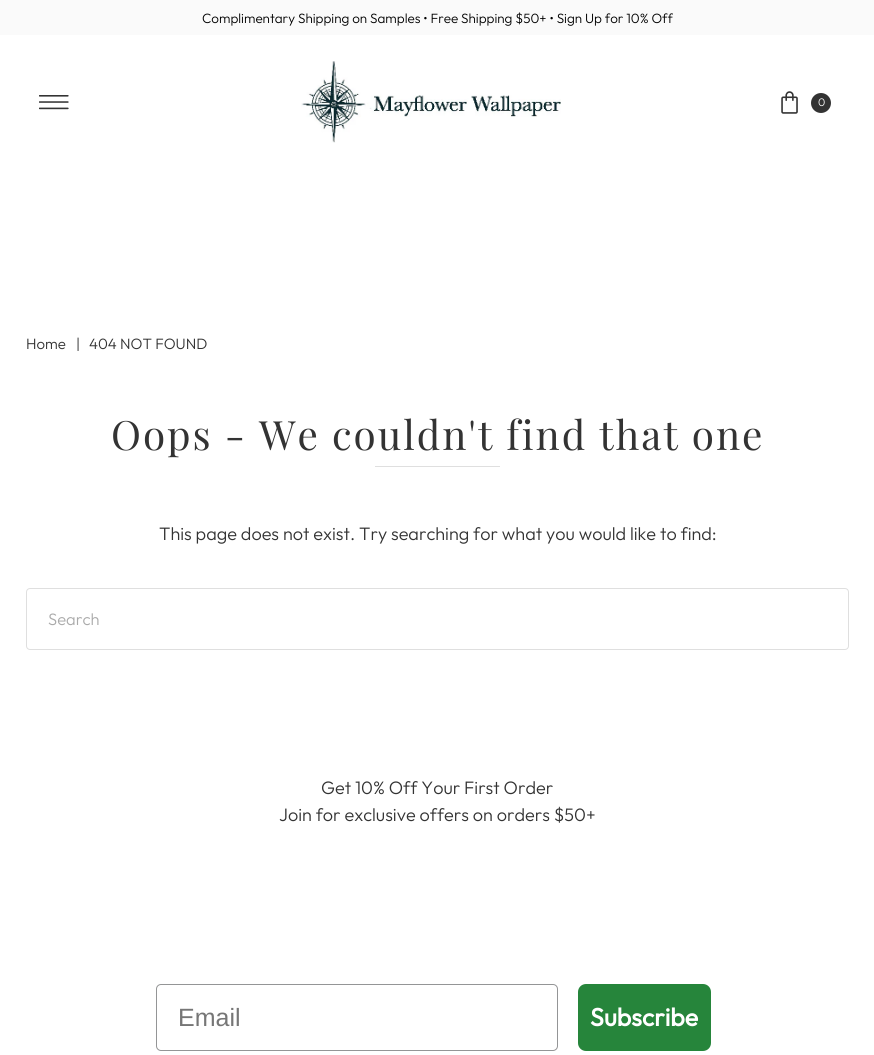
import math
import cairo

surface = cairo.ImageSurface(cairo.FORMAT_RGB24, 874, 1055)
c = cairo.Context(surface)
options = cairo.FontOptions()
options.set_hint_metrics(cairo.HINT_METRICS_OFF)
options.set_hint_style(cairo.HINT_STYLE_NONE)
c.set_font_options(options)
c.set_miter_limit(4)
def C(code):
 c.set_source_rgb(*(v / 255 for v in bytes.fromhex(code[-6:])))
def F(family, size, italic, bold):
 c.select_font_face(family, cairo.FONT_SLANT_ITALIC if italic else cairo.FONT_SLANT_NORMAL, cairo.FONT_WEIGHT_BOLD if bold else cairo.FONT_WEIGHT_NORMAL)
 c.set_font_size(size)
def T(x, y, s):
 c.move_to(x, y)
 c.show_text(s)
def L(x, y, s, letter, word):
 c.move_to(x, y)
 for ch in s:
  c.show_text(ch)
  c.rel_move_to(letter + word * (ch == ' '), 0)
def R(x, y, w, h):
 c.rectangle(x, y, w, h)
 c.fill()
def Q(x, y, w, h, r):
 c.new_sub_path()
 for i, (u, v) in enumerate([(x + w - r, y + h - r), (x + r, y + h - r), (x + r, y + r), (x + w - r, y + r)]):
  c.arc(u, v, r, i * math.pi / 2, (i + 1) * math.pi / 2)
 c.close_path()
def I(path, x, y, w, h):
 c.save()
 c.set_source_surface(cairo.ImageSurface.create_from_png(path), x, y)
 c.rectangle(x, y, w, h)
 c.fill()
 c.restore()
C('ffffff')
c.paint()
C('fafafa')
R(0,0,874,35)
F('Outfit Light',13.45,0,0)
C('000000')
T(202,23,'Complimentary Shipping on Samples • Free Shipping $50+ • Sign Up for 10% Off')
I('1.png',39,95,30,15)
I('2.png',301,61,260,82)
I('3.png',781,91,17,23)
C('333333')
c.arc(821,103,10,0,2 * math.pi)
c.fill()
F('Outfit Light',11,0,0)
C('ffffff')
T(818,106,'0')
F('Outfit Light',15,0,0)
C('333333')
T(26,349,'Home')
T(76,349,'|')
T(89,349,'404 NOT FOUND')
F('Playfair Display',40.4,0,0)
L(111,450,'Oops - We couldn\'t find that one',2,0)
C('dfdfdf')
R(375,466,125,1)
F('Outfit Light',18.05,0,0)
C('333333')
T(159,540,'This page does not exist. Try searching for what you would like to find:')
Q(26.5,588.5,822,61,3.5)
C('dfdfdf')
c.set_line_width(1)
c.stroke()
F('Outfit Light',16.5,0,0)
C('aaaaaa')
T(48,625,'Search')
F('Outfit Light',18.05,0,0)
C('333333')
T(321,794,'Get 10% Off Your First Order')
T(279,821,'Join for exclusive offers on orders $50+')
Q(156.5,984.5,401,66,4.5)
C('949596')
c.stroke()
F('Liberation Sans',25,0,0)
C('767676')
T(178,1026,'Email')
C('26853b')
Q(578,984,133,67,8)
c.fill()
F('Outfit',25,0,1)
C('ffffff')
T(590,1026,'Subscribe')
surface.write_to_png('o.png')
